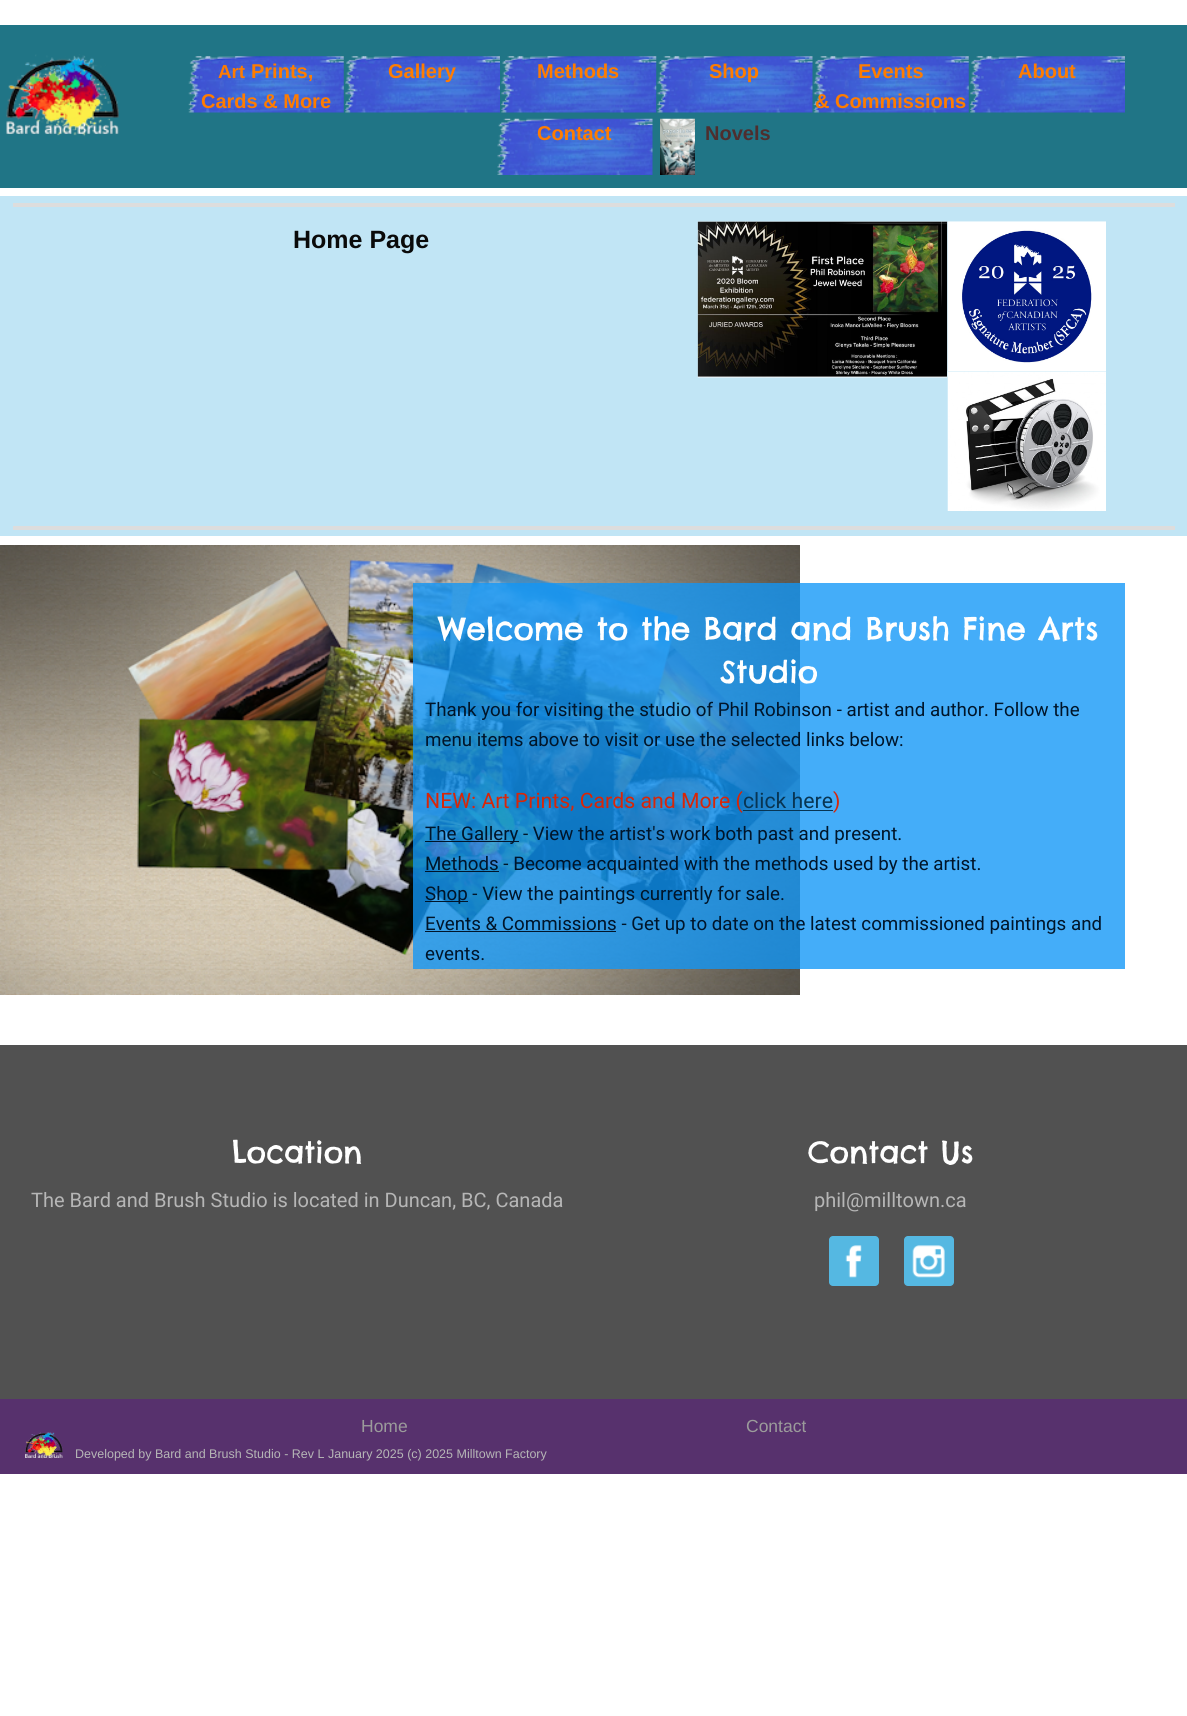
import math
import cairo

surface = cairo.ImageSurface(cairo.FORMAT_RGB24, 1187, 1716)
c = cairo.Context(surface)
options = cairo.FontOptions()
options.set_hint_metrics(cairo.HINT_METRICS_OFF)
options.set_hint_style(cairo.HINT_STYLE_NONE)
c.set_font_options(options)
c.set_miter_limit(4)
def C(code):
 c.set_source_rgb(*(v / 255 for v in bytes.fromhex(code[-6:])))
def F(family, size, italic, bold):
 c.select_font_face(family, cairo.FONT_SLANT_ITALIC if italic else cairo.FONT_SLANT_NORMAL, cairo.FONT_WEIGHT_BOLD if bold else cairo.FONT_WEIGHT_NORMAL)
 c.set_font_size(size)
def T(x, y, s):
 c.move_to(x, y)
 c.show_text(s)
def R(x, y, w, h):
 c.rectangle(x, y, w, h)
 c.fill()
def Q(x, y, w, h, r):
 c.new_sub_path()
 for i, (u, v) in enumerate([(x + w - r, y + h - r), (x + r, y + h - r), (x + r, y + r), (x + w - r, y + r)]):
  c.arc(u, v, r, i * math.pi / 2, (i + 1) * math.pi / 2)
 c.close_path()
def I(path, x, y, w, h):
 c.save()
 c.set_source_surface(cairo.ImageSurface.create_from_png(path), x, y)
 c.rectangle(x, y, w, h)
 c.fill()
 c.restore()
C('ffffff')
c.paint()
C('207586')
R(0,25,1187,163)
I('1.png',6,54,113,83)
I('2.png',188,56,156,57)
F('Liberation Sans',18.75,0,1)
C('ff7c00')
T(218,78,'Art')
F('Liberation Sans',20,0,1)
T(251,78,'Prints,')
T(201,108,'Cards & More')
I('3.png',345,56,155,57)
T(388,78,'Gallery')
I('4.png',501,56,156,57)
T(537,78,'Methods')
I('5.png',657,56,156,57)
T(709,78,'Shop')
I('6.png',813,56,156,57)
T(858,78,'Events')
T(815,108,'& Commissions')
I('7.png',970,56,155,57)
T(1018,78,'About')
I('8.png',497,118,156,57)
T(537,140,'Contact')
I('9.png',660,118,35,57)
C('4e2e2e')
T(705,140,'Novels')
C('c1e5f5')
R(0,196,1187,340)
C('dddddd')
R(13,203,1162,4)
F('Liberation Sans',25,0,1)
C('0a0a0a')
T(293,248,'Home Page')
I('10.png',697,221,251,157)
I('11.png',947,221,159,150)
I('12.png',947,371,159,140)
C('dddddd')
R(13,526,1162,4)
I('13.png',0,545,800,450)
c.set_source_rgba(0.063,0.588,0.969,0.78)
R(413,583,712,386)
F('Chelsea Market',31.25,0,0)
C('ffffff')
T(438,640,'Welcome to the Bard and Brush Fine Arts')
T(720,683,'Studio')
F('Roboto',18.75,0,0)
C('00152a')
T(425,716,'Thank you for visiting the studio of Phil Robinson - artist and author. Follow the')
T(425,746,'menu items above to visit or use the selected links below:')
F('Roboto',21.25,0,0)
C('d82608')
T(425,808,'NEW: Art Prints, Cards and More (')
C('083553')
R(743,810,90,1)
T(743,808,'click here')
C('d82608')
T(833,808,')')
C('00152a')
R(425,841,94,1)
F('Roboto',18.75,0,0)
T(425,840,'The Gallery - View the artist\'s work both past and present.')
R(425,871,74,1)
T(425,870,'Methods - Become acquainted with the methods used by the artist.')
R(425,901,43,1)
T(425,900,'Shop - View the paintings currently for sale.')
R(425,931,191,1)
T(425,930,'Events & Commissions - Get up to date on the latest commissioned paintings and')
T(425,960,'events.')
C('515151')
R(0,1045,1187,354)
F('Chelsea Market',30,0,0)
C('ffffff')
T(232,1163,'Location')
F('Roboto',20,0,0)
C('b6b6b6')
T(31,1207,'The Bard and Brush Studio is located in Duncan, BC, Canada')
F('Chelsea Market',30,0,0)
C('ffffff')
T(808,1163,'Contact Us')
F('Roboto',20,0,0)
C('b6b6b6')
T(814,1207,'phil@milltown.ca')
C('55b8e2')
Q(829,1236,50,50,4)
c.fill()
I('14.png',845,1245,17,33)
Q(904,1236,50,50,4)
c.fill()
I('15.png',912,1245,33,33)
C('57316d')
R(0,1399,1187,75)
F('Liberation Sans',17.5,0,0)
C('9b9b9b')
T(361,1432,'Home')
T(746,1432,'Contact')
I('16.png',25,1432,38,27)
F('Liberation Sans',12.5,0,0)
C('b6b6b6')
T(75,1458,'Developed by Bard and Brush Studio - Rev L January 2025 (c) 2025 Milltown Factory')
surface.write_to_png('o.png')
